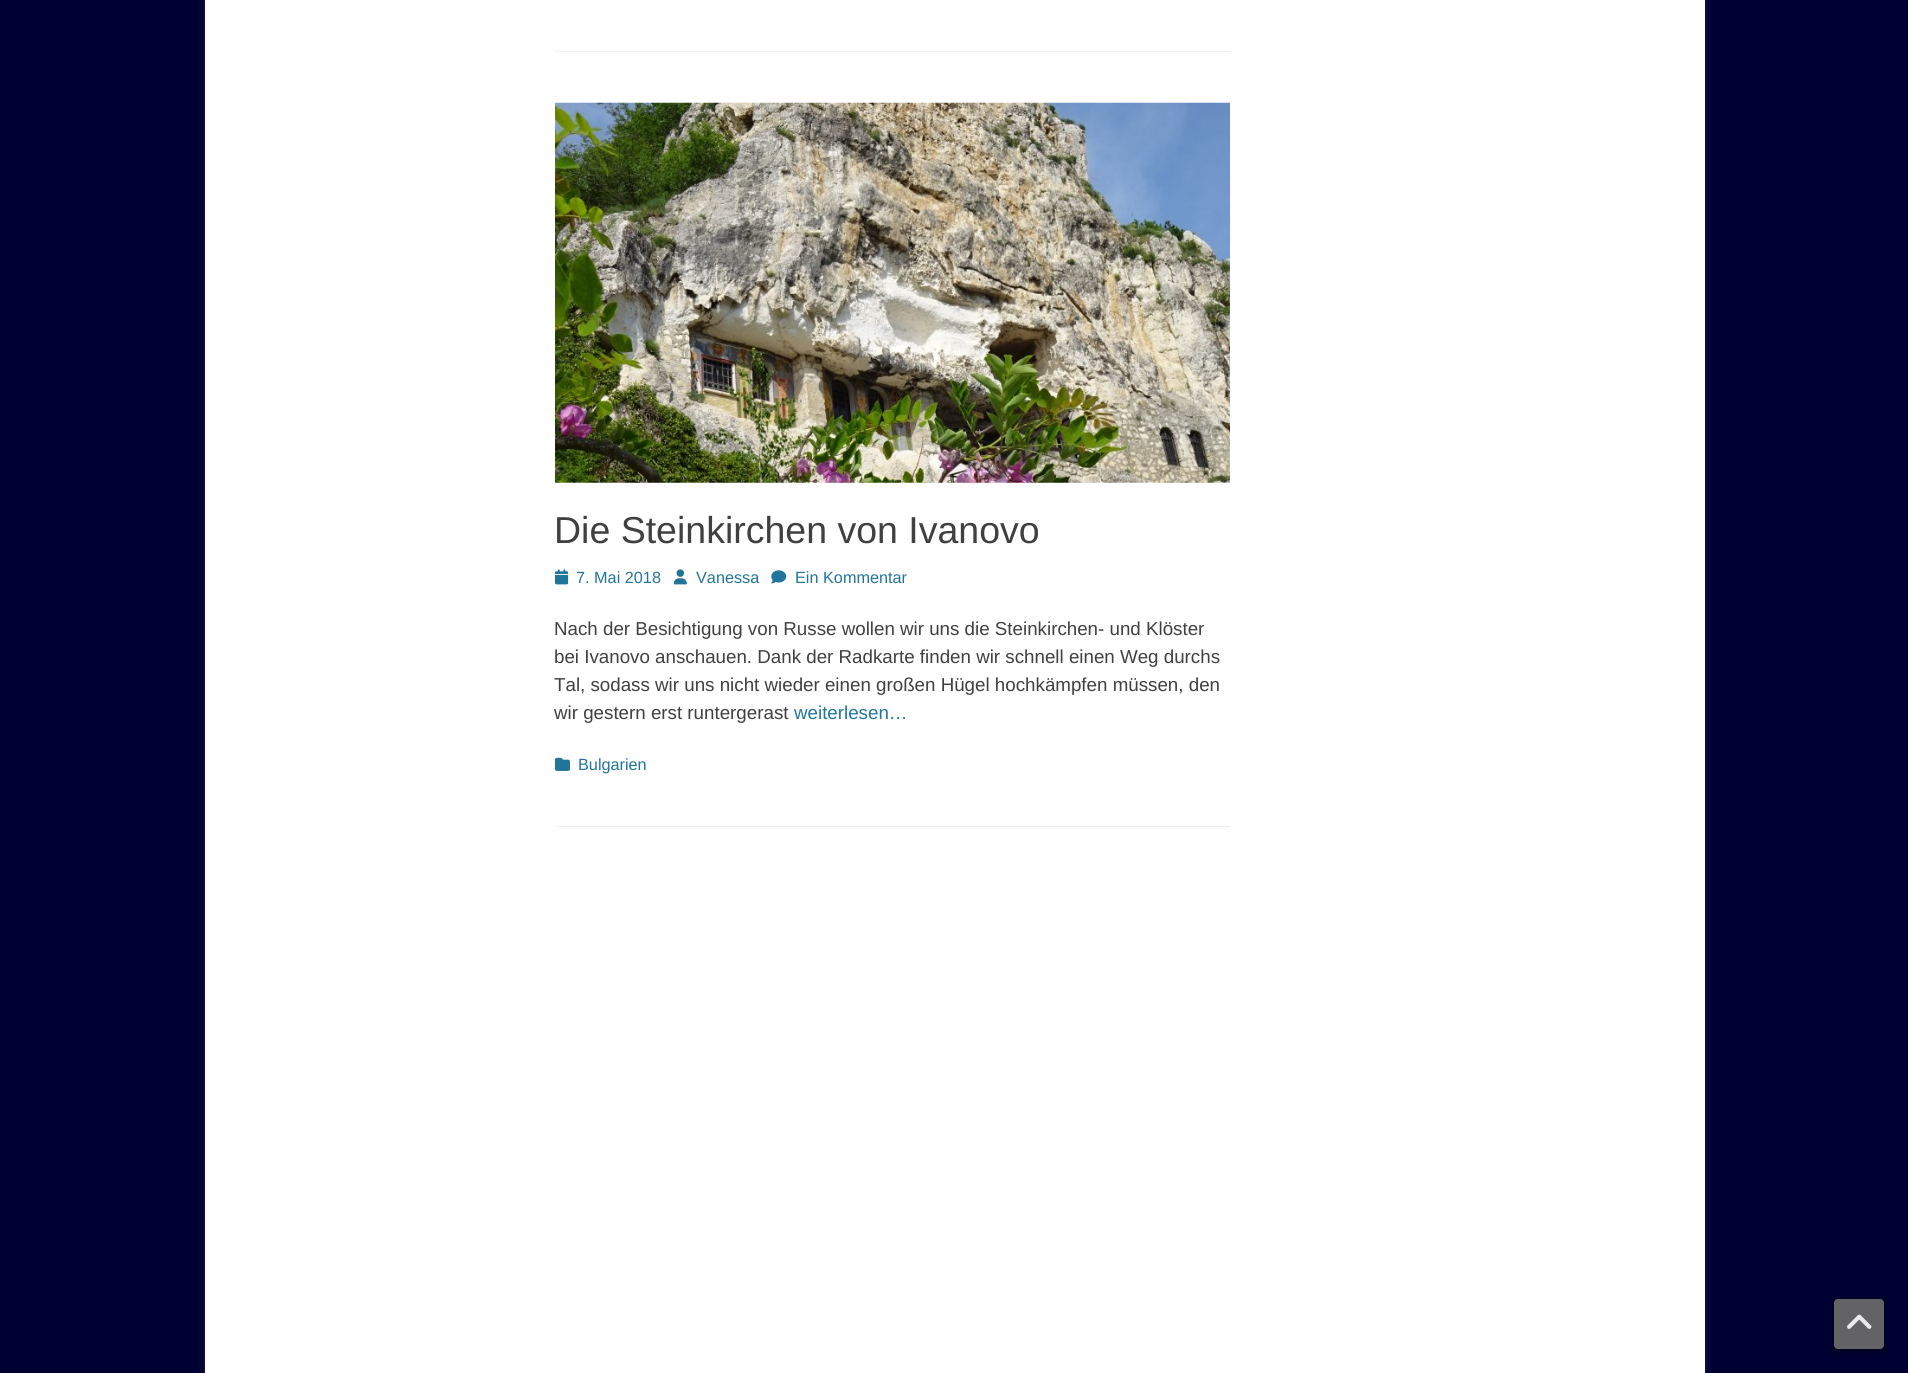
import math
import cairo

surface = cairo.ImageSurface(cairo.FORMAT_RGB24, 1908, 1373)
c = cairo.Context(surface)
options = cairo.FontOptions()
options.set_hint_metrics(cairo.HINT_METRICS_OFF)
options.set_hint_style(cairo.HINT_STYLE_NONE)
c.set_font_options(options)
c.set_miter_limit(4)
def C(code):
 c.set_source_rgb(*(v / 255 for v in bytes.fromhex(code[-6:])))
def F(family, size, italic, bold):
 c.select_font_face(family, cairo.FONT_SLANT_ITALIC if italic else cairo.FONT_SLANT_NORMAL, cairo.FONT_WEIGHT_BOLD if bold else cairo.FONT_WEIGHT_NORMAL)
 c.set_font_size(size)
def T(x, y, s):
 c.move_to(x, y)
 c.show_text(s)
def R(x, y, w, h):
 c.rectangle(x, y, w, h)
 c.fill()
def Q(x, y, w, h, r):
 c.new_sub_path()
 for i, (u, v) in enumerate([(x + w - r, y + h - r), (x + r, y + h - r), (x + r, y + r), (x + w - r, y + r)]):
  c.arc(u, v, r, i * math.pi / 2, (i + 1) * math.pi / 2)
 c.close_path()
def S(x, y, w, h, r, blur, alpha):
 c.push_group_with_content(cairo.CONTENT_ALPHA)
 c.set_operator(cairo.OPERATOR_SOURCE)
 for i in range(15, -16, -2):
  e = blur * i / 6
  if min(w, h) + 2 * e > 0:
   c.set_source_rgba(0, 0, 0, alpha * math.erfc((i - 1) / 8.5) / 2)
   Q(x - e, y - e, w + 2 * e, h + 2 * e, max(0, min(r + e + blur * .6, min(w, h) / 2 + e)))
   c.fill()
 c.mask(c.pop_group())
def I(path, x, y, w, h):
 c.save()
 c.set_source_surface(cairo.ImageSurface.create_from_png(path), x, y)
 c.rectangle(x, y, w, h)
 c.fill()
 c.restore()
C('000033')
c.paint()
C('646464')
S(205,-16,1500,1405,4,4,.3)
C('ffffff')
R(205,0,1500,1373)
C('eeeeee')
R(555,51,675,1)
R(555,826,675,1)
I('1.png',555,102,675,381)
F('Liberation Sans',37.5,0,0)
C('404040')
T(554,543,'Die Steinkirchen von Ivanovo')
I('2.png',555,569,14,16)
F('Liberation Sans',16.25,0,0)
C('21759b')
T(576,583,'7. Mai 2018')
I('3.png',673,569,14,16)
T(696,583,'Vanessa')
I('4.png',771,570,16,14)
T(795,583,'Ein Kommentar')
F('Liberation Sans',18.75,0,0)
C('404040')
T(554,635,'Nach der Besichtigung von Russe wollen wir uns die Steinkirchen- und Klöster')
T(554,663,'bei Ivanovo anschauen. Dank der Radkarte finden wir schnell einen Weg durchs')
T(554,691,'Tal, sodass wir uns nicht wieder einen großen Hügel hochkämpfen müssen, den')
T(554,719,'wir gestern erst runtergerast')
C('21759b')
T(794,719,'weiterlesen…')
I('5.png',555,757,15,14)
F('Liberation Sans',16.25,0,0)
T(578,770,'Bulgarien')
C('000001')
S(1834,1301,50,50,4,4,.5)
C('636365')
Q(1834,1299,50,50,4)
c.fill()
I('6.png',1847,1314,25,15)
surface.write_to_png('o.png')
